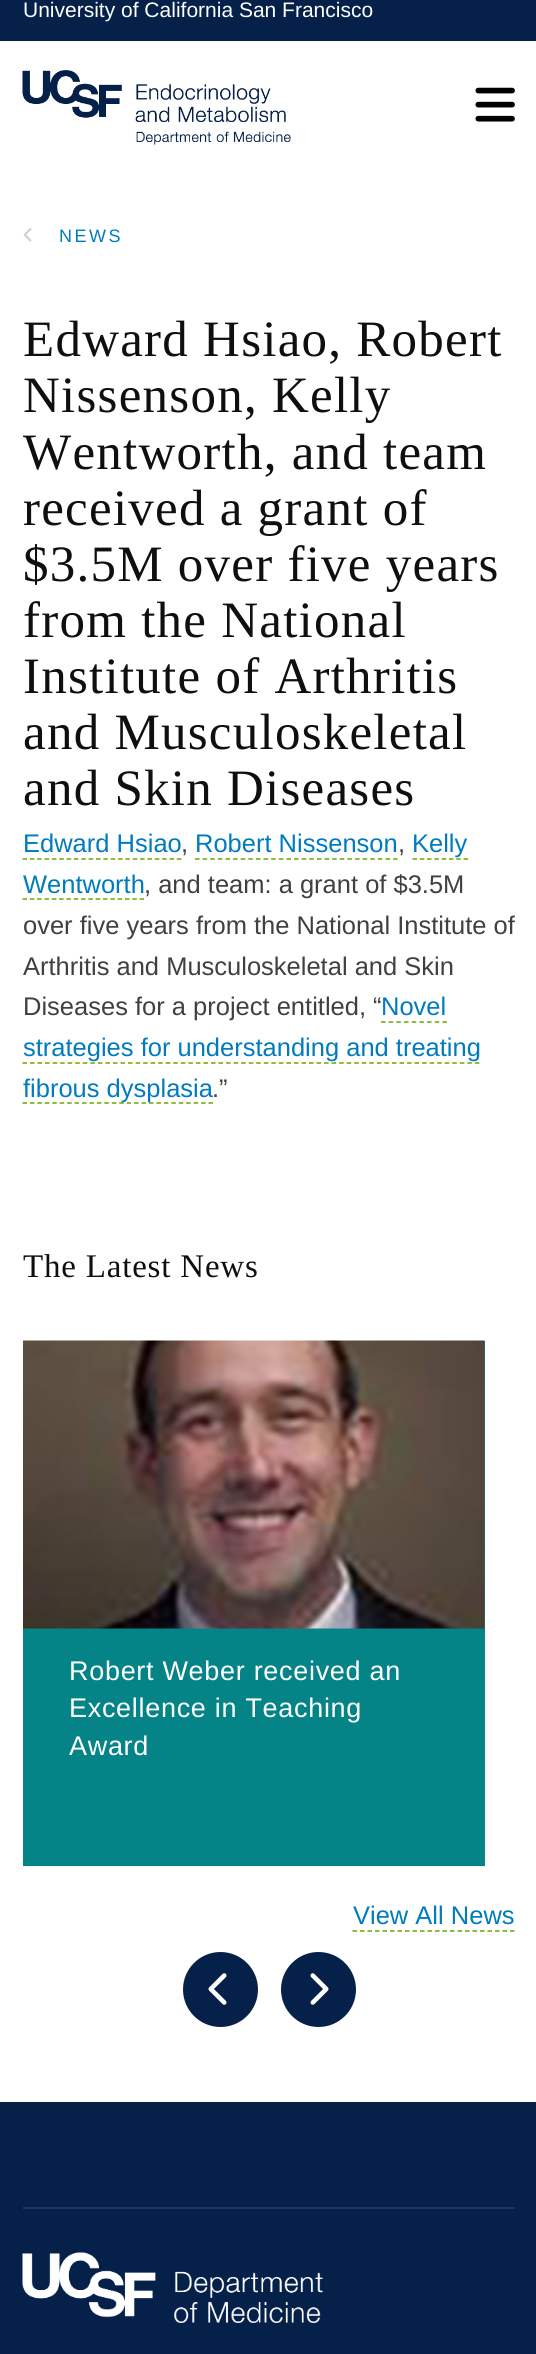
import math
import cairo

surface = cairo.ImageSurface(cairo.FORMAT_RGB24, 536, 2354)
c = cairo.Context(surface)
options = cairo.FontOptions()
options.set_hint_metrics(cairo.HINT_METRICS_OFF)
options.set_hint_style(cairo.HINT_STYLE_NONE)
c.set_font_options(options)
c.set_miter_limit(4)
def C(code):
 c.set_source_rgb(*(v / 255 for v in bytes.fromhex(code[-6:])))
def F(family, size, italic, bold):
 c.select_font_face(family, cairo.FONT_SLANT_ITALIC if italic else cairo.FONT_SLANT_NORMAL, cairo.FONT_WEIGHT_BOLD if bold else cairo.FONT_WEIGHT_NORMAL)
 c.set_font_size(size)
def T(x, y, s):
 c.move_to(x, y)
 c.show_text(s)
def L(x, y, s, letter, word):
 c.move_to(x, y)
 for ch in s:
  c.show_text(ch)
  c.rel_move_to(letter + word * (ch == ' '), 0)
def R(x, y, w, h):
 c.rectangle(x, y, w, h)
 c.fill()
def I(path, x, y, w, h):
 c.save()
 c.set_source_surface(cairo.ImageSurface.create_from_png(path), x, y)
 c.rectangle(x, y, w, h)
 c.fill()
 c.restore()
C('ffffff')
c.paint()
C('052049')
R(0,0,536,41)
F('Liberation Sans',21,0,0)
C('ffffff')
T(23,17,'University of California San Francisco')
I('1.png',22,70,269,75)
I('2.png',475,87,40,35)
I('3.png',23,228,9,14)
F('Liberation Sans',18,0,0)
C('007cbe')
L(59,242,'NEWS',2.5,0)
F('Liberation Serif',51,0,0)
C('0f0f0f')
L(23,356,'Edward Hsiao, Robert',1.25,0)
L(23,412,'Nissenson, Kelly',1.25,0)
L(23,469,'Wentworth, and team',1.25,0)
L(23,525,'received a grant of',1.25,0)
L(23,581,'$3.5M over five years',1.25,0)
L(23,637,'from the National',1.25,0)
L(23,693,'Institute of Arthritis',1.25,0)
L(23,749,'and Musculoskeletal',1.25,0)
L(23,805,'and Skin Diseases',1.25,0)
F('Liberation Sans',25.5,0,0)
C('007cbe')
T(23,852,'Edward Hsiao')
c.new_path()
c.move_to(22.5,859)
c.line_to(181.5,859)
C('6ea400')
c.set_line_width(1.5)
c.set_dash([4.5,2.85])
c.stroke()
C('404040')
T(181,852,',')
C('007cbe')
T(195,852,'Robert Nissenson')
c.new_path()
c.move_to(195,859)
c.line_to(397.5,859)
C('6ea400')
c.set_dash([4.5,3.12])
c.stroke()
C('404040')
T(398,852,',')
C('007cbe')
T(412,852,'Kelly')
c.new_path()
c.move_to(412.5,859)
c.line_to(468,859)
C('6ea400')
c.set_dash([4.5,2.79])
c.stroke()
C('007cbe')
T(23,893,'Wentworth')
c.new_path()
c.move_to(22.5,899)
c.line_to(144,899)
C('6ea400')
c.set_dash([4.5,2.82])
c.stroke()
C('404040')
T(144,893,', and team: a grant of $3.5M')
T(23,934,'over five years from the National Institute of')
T(23,975,'Arthritis and Musculoskeletal and Skin')
T(23,1015,'Diseases for a project entitled, “')
C('007cbe')
T(381,1015,'Novel')
c.new_path()
c.move_to(381,1022)
c.line_to(447,1022)
C('6ea400')
c.set_dash([4.5,3.18])
c.stroke()
C('007cbe')
T(23,1056,'strategies for understanding and treating')
c.new_path()
c.move_to(22.5,1063)
c.line_to(480,1063)
C('6ea400')
c.set_dash([4.5,3.04])
c.stroke()
c.new_path()
c.move_to(22.5,1103)
c.line_to(213,1103)
c.set_dash([4.5,2.94])
c.stroke()
C('007cbe')
T(23,1097,'fibrous dysplasia')
C('404040')
T(212,1097,'.”')
F('Liberation Serif',33,0,0)
C('0f0f0f')
L(23,1277,'The Latest News',.8,0)
C('058488')
R(23,1341,462,525)
I('4.png',23,1340,462,289)
F('Liberation Sans',27,0,0)
C('ffffff')
L(69,1680,'Robert Weber received an',.7,0)
L(69,1717,'Excellence in Teaching',.7,0)
L(69,1755,'Award',.7,0)
F('Liberation Sans',25.5,0,0)
C('007cbe')
T(353,1924,'View All News')
c.new_path()
c.move_to(352.5,1931)
c.line_to(514.5,1931)
C('6ea400')
c.set_dash([4.5,3])
c.stroke()
C('052049')
c.arc(220.5,1989.5,36,0,2 * math.pi)
c.fill_preserve()
c.set_line_width(3)
c.set_dash([])
c.stroke()
I('5.png',208,1973,19,32)
c.arc(318.5,1989.5,36,0,2 * math.pi)
c.fill_preserve()
c.stroke()
I('6.png',310,1973,19,32)
R(0,2102,536,252)
C('1e365b')
R(23,2207,492,2)
I('7.png',22,2252,301,71)
surface.write_to_png('o.png')
